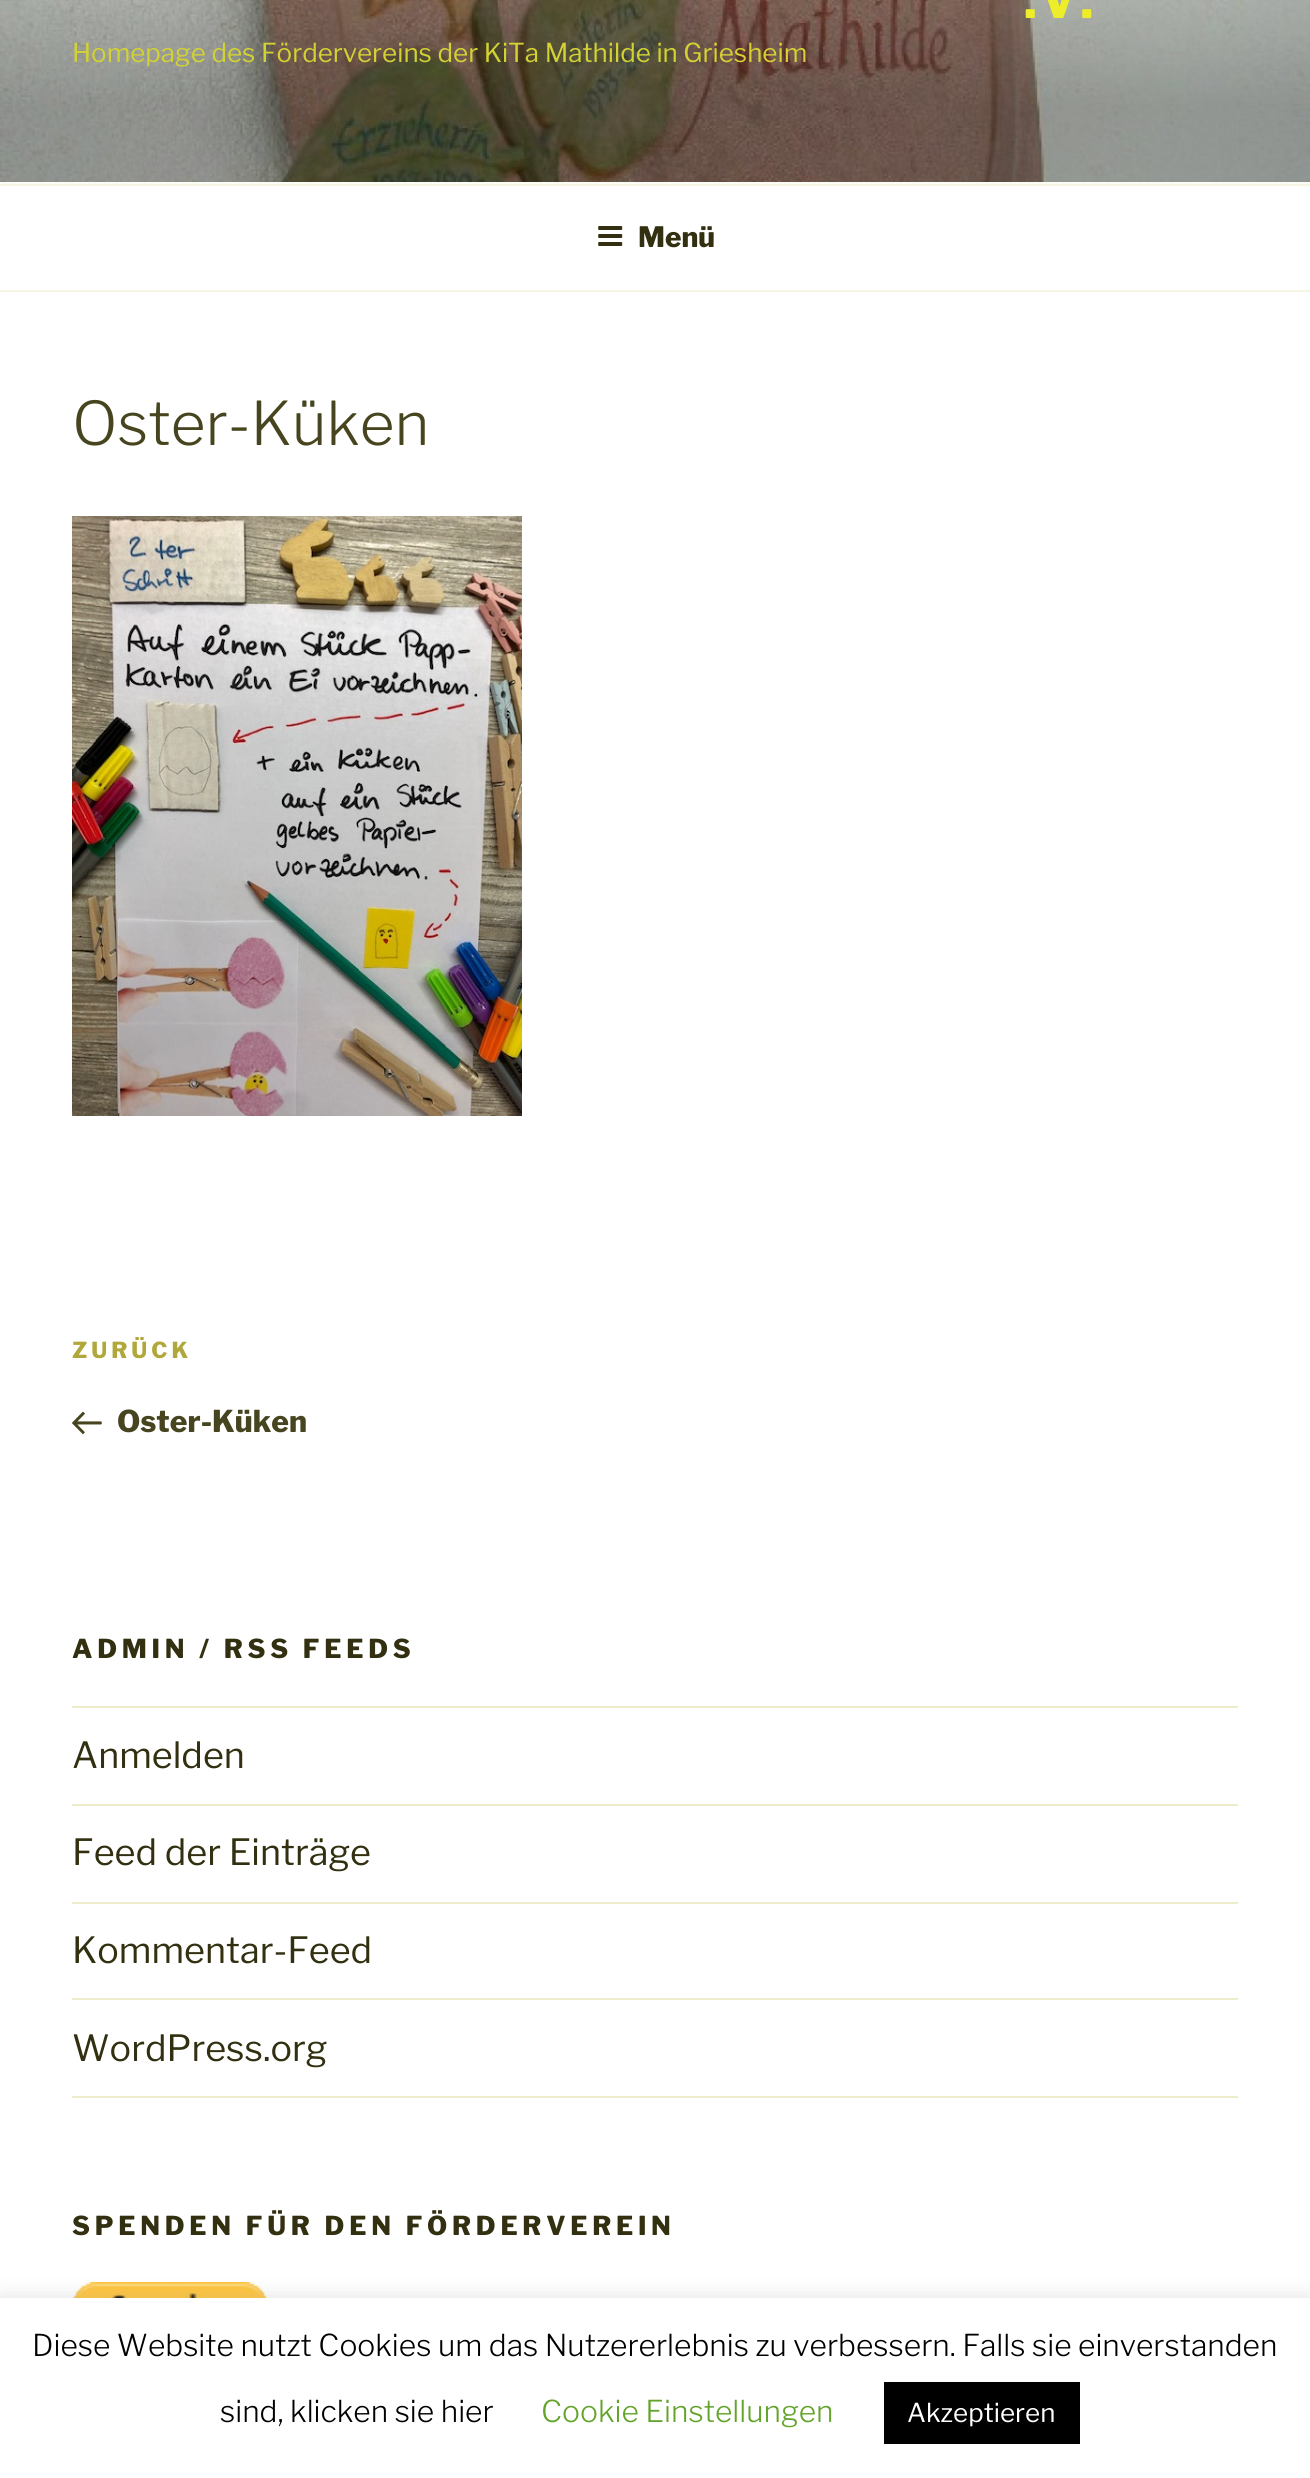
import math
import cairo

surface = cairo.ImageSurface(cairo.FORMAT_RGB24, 1310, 2478)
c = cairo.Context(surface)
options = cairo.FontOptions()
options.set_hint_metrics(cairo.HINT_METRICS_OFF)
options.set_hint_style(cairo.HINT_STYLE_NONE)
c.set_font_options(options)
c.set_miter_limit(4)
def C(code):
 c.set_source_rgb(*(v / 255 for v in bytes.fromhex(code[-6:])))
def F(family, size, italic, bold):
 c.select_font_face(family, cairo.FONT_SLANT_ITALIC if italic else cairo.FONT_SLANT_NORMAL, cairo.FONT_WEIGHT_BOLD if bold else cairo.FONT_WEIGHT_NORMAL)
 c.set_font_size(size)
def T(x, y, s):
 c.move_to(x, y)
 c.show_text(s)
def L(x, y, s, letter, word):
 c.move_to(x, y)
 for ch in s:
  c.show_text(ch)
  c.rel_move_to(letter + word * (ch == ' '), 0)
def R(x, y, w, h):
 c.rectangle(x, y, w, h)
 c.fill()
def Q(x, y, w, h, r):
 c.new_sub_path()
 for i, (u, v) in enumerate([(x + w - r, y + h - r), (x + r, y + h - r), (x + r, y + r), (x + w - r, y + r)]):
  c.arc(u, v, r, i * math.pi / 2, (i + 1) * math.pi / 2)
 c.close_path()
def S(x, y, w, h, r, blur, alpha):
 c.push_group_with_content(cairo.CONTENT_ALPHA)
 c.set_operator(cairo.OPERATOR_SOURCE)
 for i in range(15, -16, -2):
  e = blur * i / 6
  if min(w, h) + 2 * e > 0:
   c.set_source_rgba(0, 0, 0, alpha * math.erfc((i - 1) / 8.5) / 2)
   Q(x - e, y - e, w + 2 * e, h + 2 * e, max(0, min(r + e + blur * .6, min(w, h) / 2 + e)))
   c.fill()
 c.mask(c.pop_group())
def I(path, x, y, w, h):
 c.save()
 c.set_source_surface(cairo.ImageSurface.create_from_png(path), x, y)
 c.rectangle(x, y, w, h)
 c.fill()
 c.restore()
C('ffffff')
c.paint()
C('fcfcf7')
R(0,182,1310,2)
I('1.png',0,0,1310,182)
F('Libre Franklin Thin',48,0,0)
C('eded2a')
L(1024,18,'.V.',4,0)
F('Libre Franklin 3 Thin',26,0,0)
C('d3d133')
T(72,62,'Homepage des Fördervereins der KiTa Mathilde in Griesheim')
C('f6f5e4')
R(0,184,1310,2)
R(0,290,1310,2)
I('2.png',598,226,25,20)
F('Libre Franklin Thin',28,0,0)
C('323011')
T(638,247,'Menü')
F('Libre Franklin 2 Thin',60,0,0)
C('47451f')
T(72,445,'Oster-Küken')
I('3.png',72,516,450,600)
F('Libre Franklin Thin',22,0,0)
C('b0a83b')
L(72,1358,'ZURÜCK',4,0)
I('4.png',72,1411,30,24)
F('Libre Franklin Thin',30,0,0)
C('47451f')
T(117,1432,'Oster-Küken')
F('Libre Franklin Thin',26,0,0)
C('323011')
L(72,1658,'ADMIN / RSS FEEDS',4.75,0)
C('eeeccd')
R(72,1706,1166,2)
R(72,1804,1166,2)
F('Libre Franklin 3 Thin',36,0,0)
C('323011')
T(72,1768,'Anmelden')
C('eeeccd')
R(72,1902,1166,2)
C('323011')
T(72,1865,'Feed der Einträge')
C('eeeccd')
R(72,1998,1166,2)
C('323011')
T(72,1963,'Kommentar-Feed')
C('eeeccd')
R(72,2096,1166,2)
C('323011')
T(72,2061,'WordPress.org')
F('Libre Franklin Thin',26,0,0)
L(72,2235,'SPENDEN FÜR DEN FÖRDERVEREIN',4.75,0)
I('5.png',73,2282,194,16)
C('acabab')
S(0,2296,1310,180,0,10,.3)
C('ffffff')
R(0,2298,1310,180)
F('Libre Franklin 2 Thin',30,0,0)
C('000000')
T(32,2356,'Diese Website nutzt Cookies um das Nutzererlebnis zu verbessern. Falls sie einverstanden')
T(220,2422,'sind, klicken sie hier')
C('62a329')
T(541,2422,'Cookie Einstellungen')
C('000000')
R(884,2382,196,62)
F('Libre Franklin 3 Thin',26,0,0)
C('ffffff')
T(907,2422,'Akzeptieren')
surface.write_to_png('o.png')
